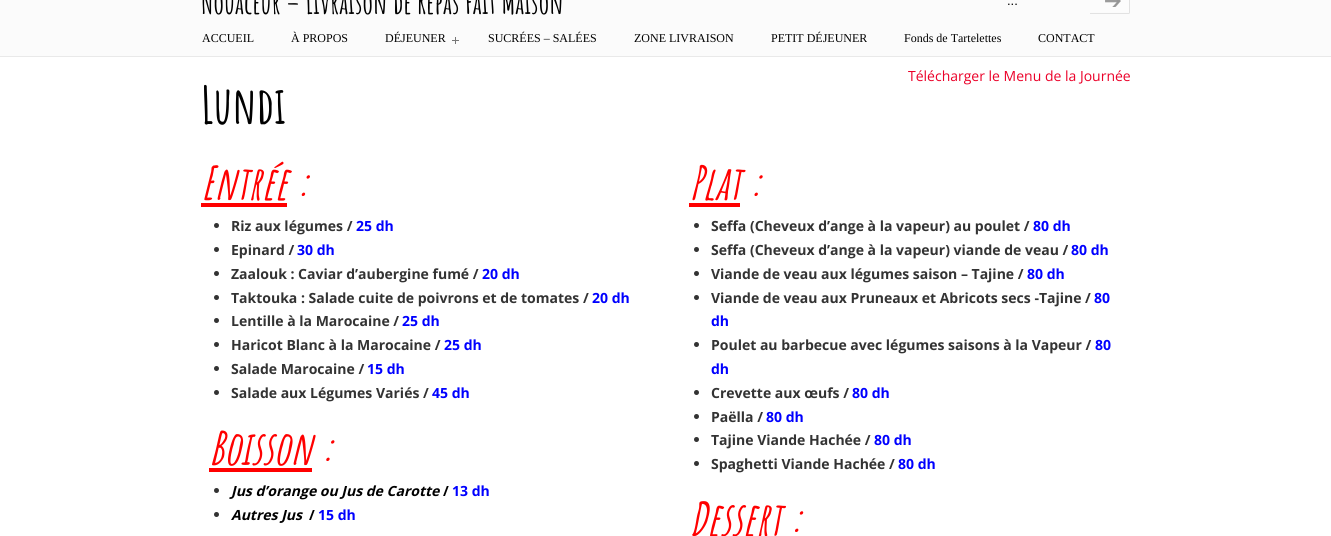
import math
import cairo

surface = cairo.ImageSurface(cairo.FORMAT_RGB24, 1331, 536)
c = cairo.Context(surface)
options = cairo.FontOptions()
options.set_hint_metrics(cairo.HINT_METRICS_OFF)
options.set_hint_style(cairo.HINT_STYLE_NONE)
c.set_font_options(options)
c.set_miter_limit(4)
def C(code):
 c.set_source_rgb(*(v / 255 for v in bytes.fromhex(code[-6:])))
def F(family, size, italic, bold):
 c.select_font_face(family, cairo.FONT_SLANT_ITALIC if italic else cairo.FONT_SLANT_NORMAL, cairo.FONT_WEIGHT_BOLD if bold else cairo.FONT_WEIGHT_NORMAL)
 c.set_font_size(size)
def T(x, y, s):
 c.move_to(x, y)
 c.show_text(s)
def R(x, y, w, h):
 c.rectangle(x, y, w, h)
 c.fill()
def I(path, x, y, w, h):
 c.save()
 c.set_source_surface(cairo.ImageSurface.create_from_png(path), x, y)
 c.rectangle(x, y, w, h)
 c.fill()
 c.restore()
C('fbfbfb')
c.paint()
F('Amatic SC',30,0,1)
C('000000')
T(201,14,'Nouaceur – Livraison de Repas Fait Maison')
F('Liberation Sans',13,0,0)
T(1007,5,'...')
I('1.png',1090,0,40,14)
C('e9e9e9')
R(0,56,1331,1)
F('Liberation Serif',12,0,0)
C('000000')
T(202,42,'ACCUEIL')
T(291,42,'À PROPOS')
T(385,42,'DÉJEUNER')
I('2.png',452,37,7,7)
T(488,42,'SUCRÉES – SALÉES')
T(634,42,'ZONE LIVRAISON')
T(771,42,'PETIT DÉJEUNER')
T(904,42,'Fonds de Tartelettes')
T(1038,42,'CONTACT')
C('ffffff')
R(0,57,1331,479)
F('Open Sans',14,0,0)
C('eb0028')
T(908,81,'Télécharger le Menu de la Journée')
F('Amatic SC',51,0,1)
C('000000')
T(201,124,'Lundi')
F('Amatic SC',46,1,1)
C('ff0000')
T(201,200,'Entrée :')
R(201,203,86,4)
C('333333')
c.new_path()
c.arc(216.5,225.5,2.5,0,2 * math.pi)
c.fill()
F('Open Sans',14,0,1)
T(231,231,'Riz aux légumes /')
C('0000ff')
T(356,231,'25 dh')
C('333333')
c.new_path()
c.arc(216.5,249.5,2.5,0,2 * math.pi)
c.fill()
T(231,255,'Epinard /')
C('0000ff')
T(297,255,'30 dh')
C('333333')
c.new_path()
c.arc(216.5,273.5,2.5,0,2 * math.pi)
c.fill()
T(231,279,'Zaalouk : Caviar d’aubergine fumé /')
C('0000ff')
T(482,279,'20 dh')
C('333333')
c.new_path()
c.arc(216.5,297.5,2.5,0,2 * math.pi)
c.fill()
T(231,303,'Taktouka : Salade cuite de poivrons et de tomates /')
C('0000ff')
T(592,303,'20 dh')
C('333333')
c.new_path()
c.arc(216.5,320.5,2.5,0,2 * math.pi)
c.fill()
T(231,326,'Lentille à la Marocaine /')
C('0000ff')
T(402,326,'25 dh')
C('333333')
c.new_path()
c.arc(216.5,344.5,2.5,0,2 * math.pi)
c.fill()
T(231,350,'Haricot Blanc à la Marocaine /')
C('0000ff')
T(444,350,'25 dh')
C('333333')
c.new_path()
c.arc(216.5,368.5,2.5,0,2 * math.pi)
c.fill()
T(231,374,'Salade Marocaine /')
C('0000ff')
T(367,374,'15 dh')
C('333333')
c.new_path()
c.arc(216.5,392.5,2.5,0,2 * math.pi)
c.fill()
T(231,398,'Salade aux Légumes Variés /')
C('0000ff')
T(432,398,'45 dh')
F('Amatic SC',46,1,1)
C('ff0000')
T(209,465,'Boisson :')
R(209,468,103,4)
C('333333')
c.new_path()
c.arc(216.5,490.5,2.5,0,2 * math.pi)
c.fill()
F('Open Sans',14,1,1)
C('000000')
T(231,496,'Jus d’orange ou Jus de Carotte')
F('Open Sans',14,0,1)
T(443,496,'/')
C('0000ff')
T(452,496,'13 dh')
C('333333')
c.new_path()
c.arc(216.5,514.5,2.5,0,2 * math.pi)
c.fill()
F('Open Sans',14,1,1)
C('000000')
T(231,520,'Autres Jus')
F('Open Sans',14,0,1)
T(309,520,'/')
C('0000ff')
T(318,520,'15 dh')
F('Amatic SC',46,1,1)
C('ff0000')
T(689,200,'Plat :')
R(689,203,51,4)
C('333333')
c.new_path()
c.arc(696.5,225.5,2.5,0,2 * math.pi)
c.fill()
F('Open Sans',14,0,1)
T(711,231,'Seffa (Cheveux d’ange à la vapeur) au poulet /')
C('0000ff')
T(1033,231,'80 dh')
C('333333')
c.new_path()
c.arc(696.5,249.5,2.5,0,2 * math.pi)
c.fill()
T(711,255,'Seffa (Cheveux d’ange à la vapeur) viande de veau /')
C('0000ff')
T(1071,255,'80 dh')
C('333333')
c.new_path()
c.arc(696.5,273.5,2.5,0,2 * math.pi)
c.fill()
T(711,279,'Viande de veau aux légumes saison – Tajine /')
C('0000ff')
T(1027,279,'80 dh')
C('333333')
c.new_path()
c.arc(696.5,297.5,2.5,0,2 * math.pi)
c.fill()
T(711,303,'Viande de veau aux Pruneaux et Abricots secs -Tajine /')
C('0000ff')
T(1094,303,'80')
T(711,326,'dh')
C('333333')
c.new_path()
c.arc(696.5,344.5,2.5,0,2 * math.pi)
c.fill()
T(711,350,'Poulet au barbecue avec légumes saisons à la Vapeur /')
C('0000ff')
T(1095,350,'80')
T(711,374,'dh')
C('333333')
c.new_path()
c.arc(696.5,392.5,2.5,0,2 * math.pi)
c.fill()
T(711,398,'Crevette aux œufs /')
C('0000ff')
T(852,398,'80 dh')
C('333333')
c.new_path()
c.arc(696.5,416.5,2.5,0,2 * math.pi)
c.fill()
T(711,422,'Paëlla /')
C('0000ff')
T(766,422,'80 dh')
C('333333')
c.new_path()
c.arc(696.5,439.5,2.5,0,2 * math.pi)
c.fill()
T(711,445,'Tajine Viande Hachée /')
C('0000ff')
T(874,445,'80 dh')
C('333333')
c.new_path()
c.arc(696.5,463.5,2.5,0,2 * math.pi)
c.fill()
T(711,469,'Spaghetti Viande Hachée /')
C('0000ff')
T(898,469,'80 dh')
F('Amatic SC',46,1,1)
C('ff0000')
T(689,536,'Dessert :')
surface.write_to_png('o.png')
